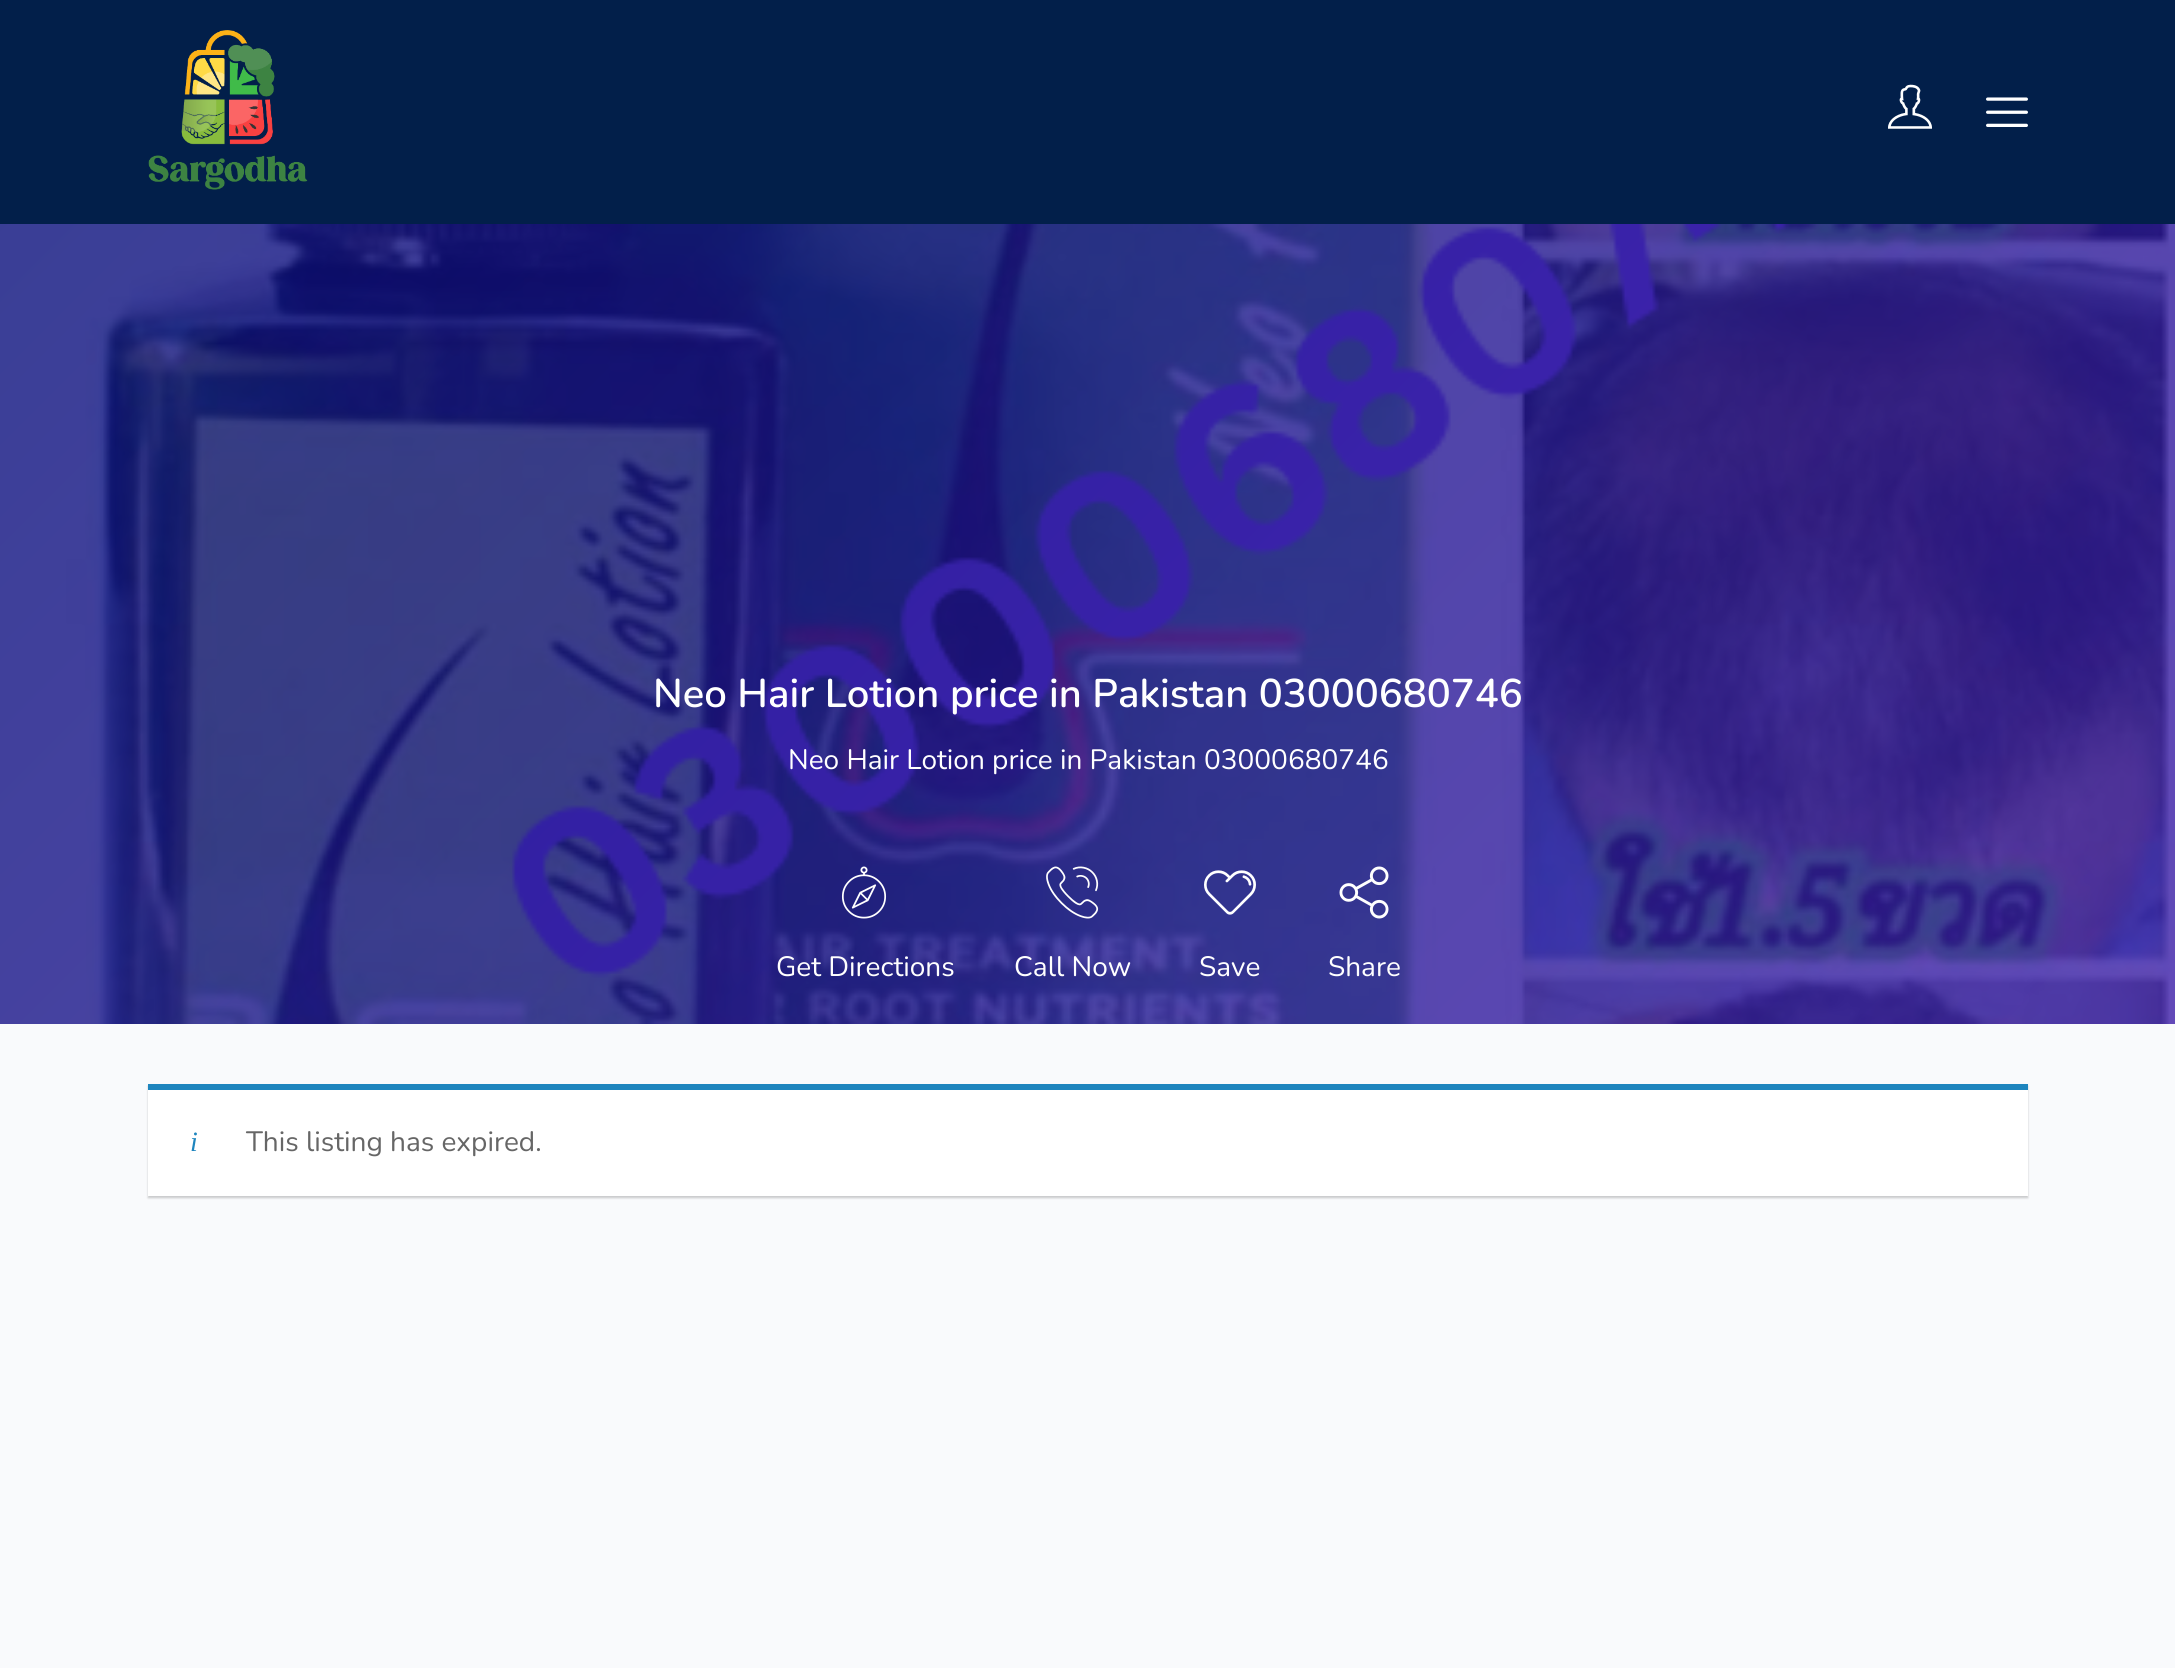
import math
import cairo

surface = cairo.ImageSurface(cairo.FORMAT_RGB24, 2175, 1668)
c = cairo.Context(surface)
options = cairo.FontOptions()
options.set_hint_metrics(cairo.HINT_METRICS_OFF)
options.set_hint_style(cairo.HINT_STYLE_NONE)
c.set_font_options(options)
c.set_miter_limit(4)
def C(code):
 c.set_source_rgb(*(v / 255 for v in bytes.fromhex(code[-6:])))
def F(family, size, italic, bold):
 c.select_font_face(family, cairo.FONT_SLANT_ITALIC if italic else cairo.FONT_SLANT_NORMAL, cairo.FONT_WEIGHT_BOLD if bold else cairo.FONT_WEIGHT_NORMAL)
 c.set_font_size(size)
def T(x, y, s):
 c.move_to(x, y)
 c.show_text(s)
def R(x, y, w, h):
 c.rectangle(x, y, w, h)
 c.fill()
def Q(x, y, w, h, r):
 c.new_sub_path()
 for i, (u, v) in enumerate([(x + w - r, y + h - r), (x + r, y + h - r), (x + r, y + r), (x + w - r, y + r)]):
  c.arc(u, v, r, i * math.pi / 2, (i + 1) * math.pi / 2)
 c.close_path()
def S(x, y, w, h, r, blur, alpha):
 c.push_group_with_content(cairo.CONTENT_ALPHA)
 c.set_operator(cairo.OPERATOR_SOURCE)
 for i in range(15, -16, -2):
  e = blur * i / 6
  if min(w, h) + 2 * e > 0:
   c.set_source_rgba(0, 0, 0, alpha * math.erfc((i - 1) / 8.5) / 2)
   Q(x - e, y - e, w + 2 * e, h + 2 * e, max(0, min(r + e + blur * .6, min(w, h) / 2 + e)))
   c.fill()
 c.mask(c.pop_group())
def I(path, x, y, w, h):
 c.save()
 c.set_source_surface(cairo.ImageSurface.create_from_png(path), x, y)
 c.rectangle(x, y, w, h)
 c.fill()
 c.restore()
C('f9fafc')
c.paint()
C('021f4a')
R(0,0,2175,224)
I('1.png',148,30,160,160)
I('2.png',1888,84,44,45)
I('3.png',1986,97,42,30)
I('4.png',0,224,2175,800)
F('Nunito SemiBold',40,0,0)
C('ffffff')
T(653,707,'Neo Hair Lotion price in Pakistan 03000680746')
F('Nunito',28,0,0)
T(788,769,'Neo Hair Lotion price in Pakistan 03000680746')
I('5.png',841,866,46,53)
T(776,976,'Get Directions')
I('6.png',1046,866,53,53)
T(1014,976,'Call Now')
I('7.png',1204,870,52,45)
T(1199,976,'Save')
I('8.png',1339,866,50,53)
T(1328,976,'Share')
C('000000')
S(148,1086,1880,112,0,1,.2)
C('ffffff')
R(148,1090,1880,106)
C('1e85be')
R(148,1084,1880,6)
F('Liberation Serif',28,1,0)
T(190,1151,'i')
F('Nunito',28,0,0)
C('666666')
T(246,1151,'This listing has expired.')
surface.write_to_png('o.png')
